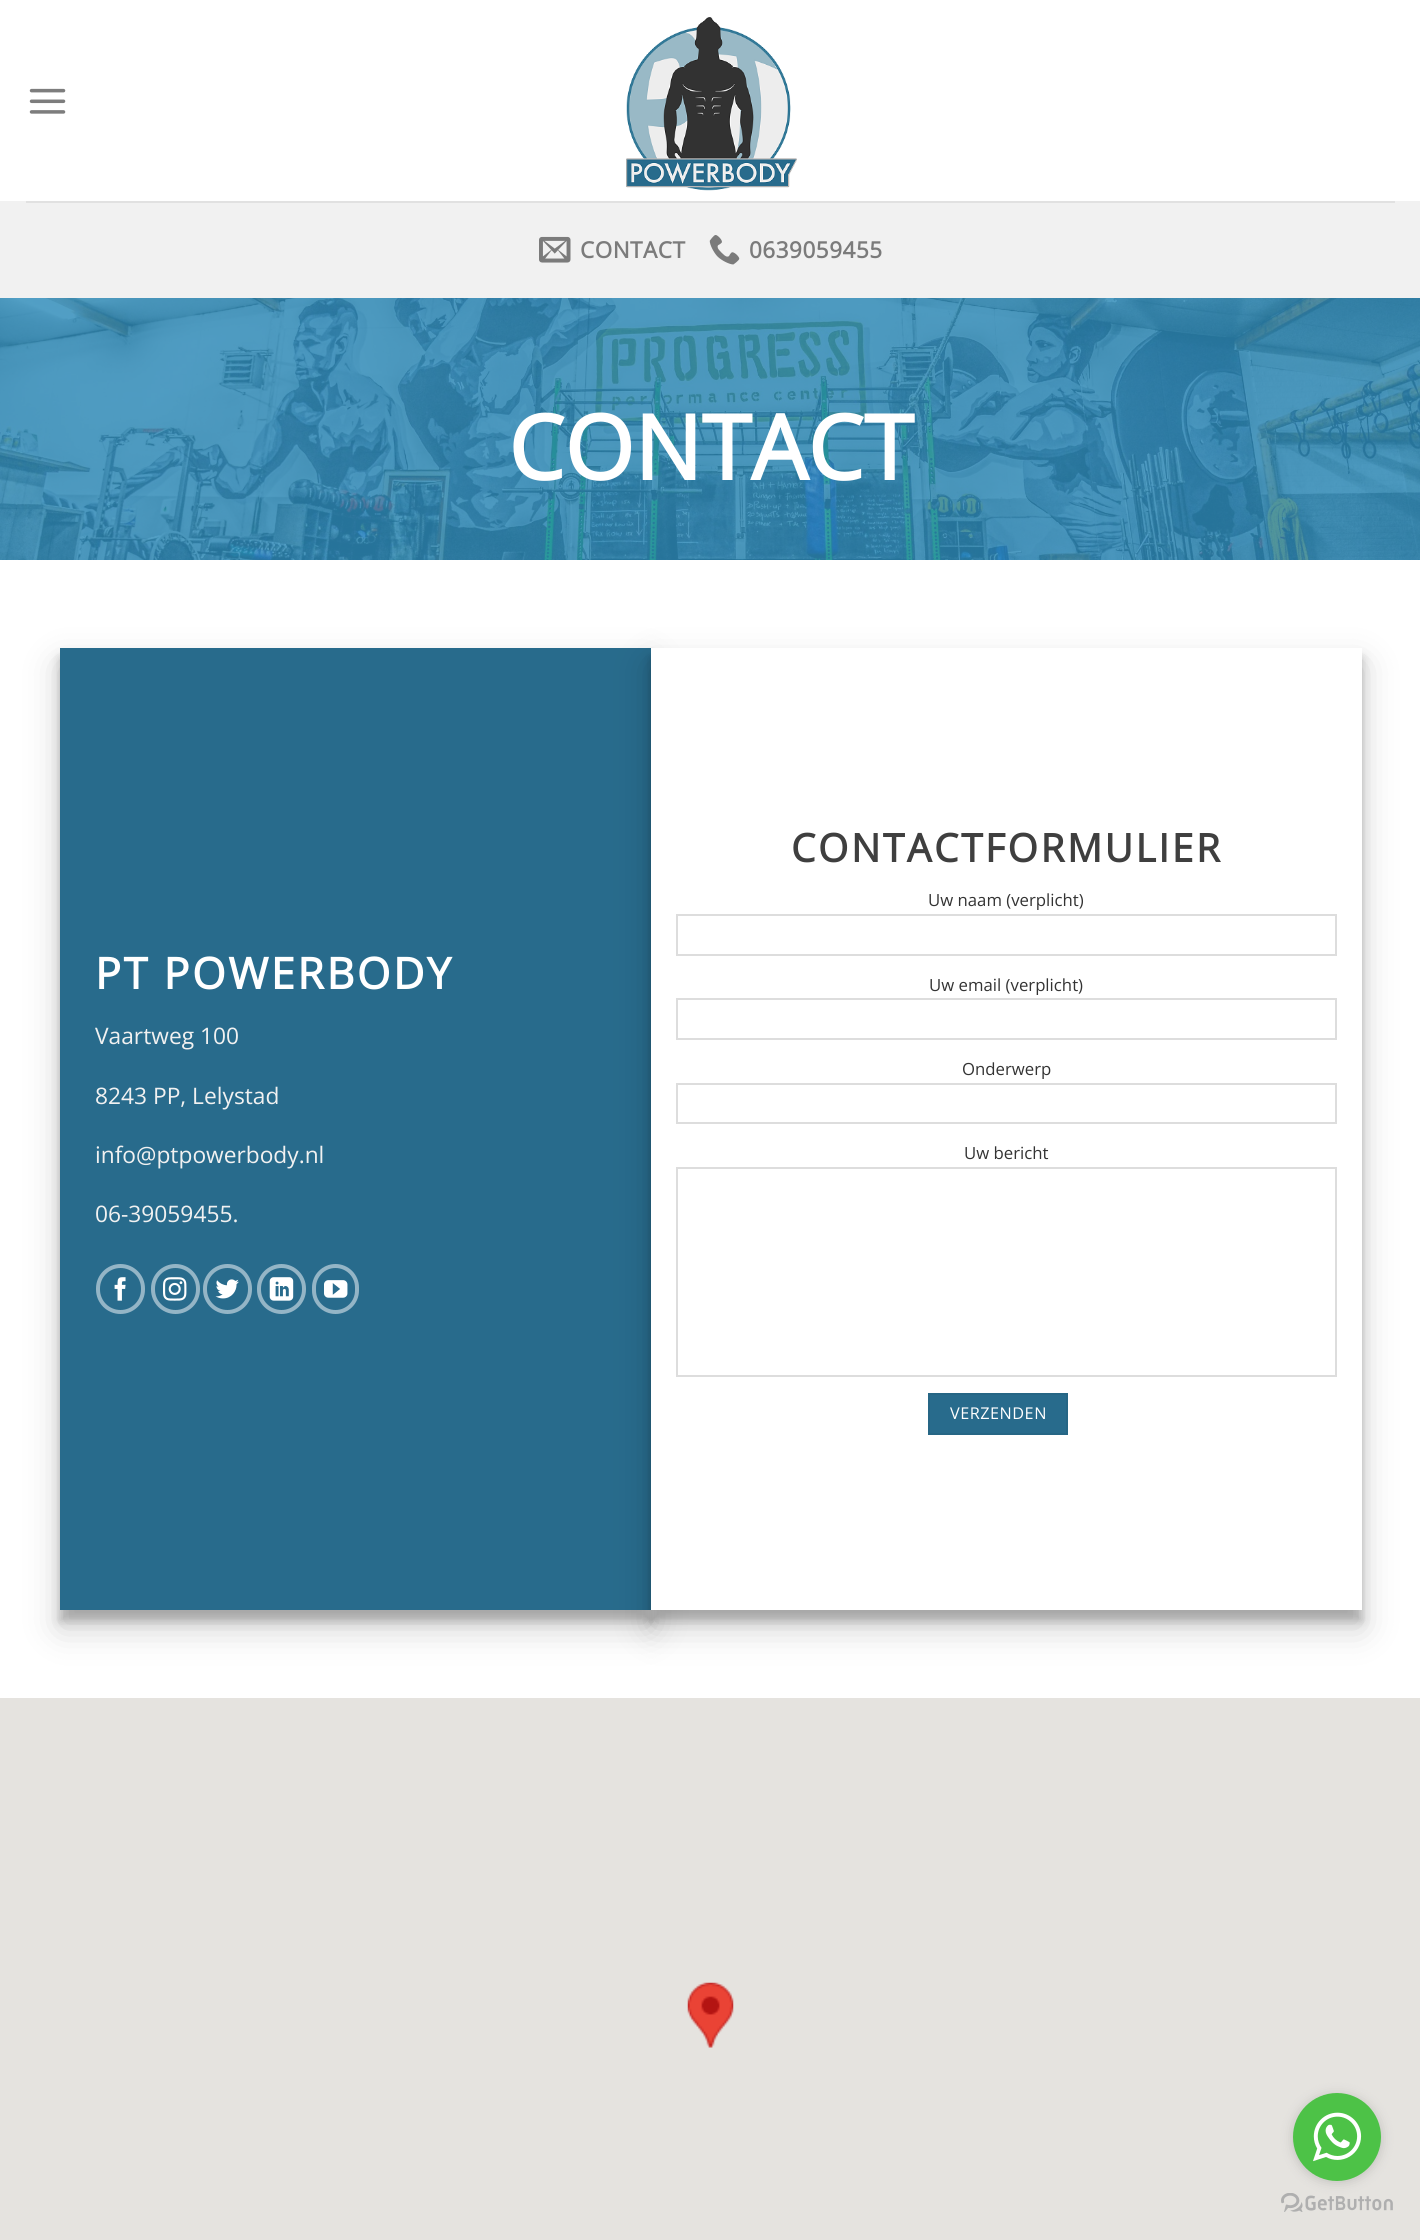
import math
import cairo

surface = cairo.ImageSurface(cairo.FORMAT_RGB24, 1420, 2240)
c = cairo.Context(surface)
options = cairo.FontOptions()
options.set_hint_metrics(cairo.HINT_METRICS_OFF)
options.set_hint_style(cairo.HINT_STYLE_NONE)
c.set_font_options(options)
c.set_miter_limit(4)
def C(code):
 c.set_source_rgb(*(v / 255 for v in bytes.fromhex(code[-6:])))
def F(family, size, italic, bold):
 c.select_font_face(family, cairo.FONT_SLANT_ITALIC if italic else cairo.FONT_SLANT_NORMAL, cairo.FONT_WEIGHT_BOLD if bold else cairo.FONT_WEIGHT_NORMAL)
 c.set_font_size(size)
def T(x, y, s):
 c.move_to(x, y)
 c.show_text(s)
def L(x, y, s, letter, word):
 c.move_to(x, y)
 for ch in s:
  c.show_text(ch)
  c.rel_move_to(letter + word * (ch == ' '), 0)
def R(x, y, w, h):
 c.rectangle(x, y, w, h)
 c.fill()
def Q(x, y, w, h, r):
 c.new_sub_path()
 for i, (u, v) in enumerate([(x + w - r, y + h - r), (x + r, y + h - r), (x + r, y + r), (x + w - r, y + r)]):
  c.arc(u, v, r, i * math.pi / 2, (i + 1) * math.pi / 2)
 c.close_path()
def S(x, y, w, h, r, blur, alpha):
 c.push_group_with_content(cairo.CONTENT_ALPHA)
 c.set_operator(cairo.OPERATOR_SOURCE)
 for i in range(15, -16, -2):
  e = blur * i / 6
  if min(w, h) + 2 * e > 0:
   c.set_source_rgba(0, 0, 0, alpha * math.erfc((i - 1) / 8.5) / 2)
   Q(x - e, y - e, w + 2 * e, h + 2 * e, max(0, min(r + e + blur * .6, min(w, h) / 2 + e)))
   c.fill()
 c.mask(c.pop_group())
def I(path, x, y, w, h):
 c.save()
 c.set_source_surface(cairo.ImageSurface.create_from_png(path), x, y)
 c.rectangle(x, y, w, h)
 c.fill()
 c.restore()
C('ffffff')
c.paint()
I('1.png',29,88,37,26)
I('2.png',626,17,171,174)
C('f1f1f1')
R(0,201,1420,97)
C('e1e1e1')
R(26,201,1369,2)
I('3.png',539,236,32,27)
F('Open Sans',22.5,0,1)
C('7b7b7b')
L(580,258,'CONTACT',.5,0)
I('4.png',709,235,31,30)
L(749,258,'0639059455',.5,0)
I('5.png',0,298,1420,262)
F('Open Sans',89.5,0,1)
C('ffffff')
T(508,480,'CONTACT')
C('000000')
S(60,658,591,963,0,5,.22)
S(60,665,591,963,0,17.5,.19)
C('286b8c')
R(60,648,591,962)
F('Open Sans',43.25,0,1)
C('ffffff')
L(95,989,'PT POWERBODY',2.5,0)
F('Open Sans',22.75,0,0)
C('f1f1f1')
T(95,1044,'Vaartweg 100')
T(95,1104,'8243 PP, Lelystad')
T(95,1163,'info@ptpowerbody.nl')
T(95,1222,'06-39059455.')
Q(98,1266,45,46,22.5)
C('94b5c6')
c.set_line_width(4)
c.stroke()
I('6.png',114,1277,12,24)
Q(153,1266,45,46,22.5)
c.stroke()
I('7.png',163,1277,24,24)
Q(205,1266,45,46,22.5)
c.stroke()
I('8.png',215,1279,24,20)
Q(259,1266,45,46,22.5)
c.stroke()
I('9.png',269,1277,25,24)
Q(314,1266,43,46,21.5)
c.stroke()
I('10.png',324,1280,24,18)
C('000000')
S(651,658,711,963,0,5,.22)
S(651,665,711,963,0,17.5,.19)
C('ffffff')
R(651,648,711,962)
F('Open Sans',39,0,1)
C('3f3f3f')
L(791,862,'CONTACTFORMULIER',2.5,0)
F('Open Sans',16.75,0,0)
C('333333')
T(928,906,'Uw naam (verplicht)')
c.rectangle(677,915,659,40)
C('dddddd')
c.set_line_width(2)
c.stroke()
C('333333')
T(929,991,'Uw email (verplicht)')
c.rectangle(677,999,659,40)
C('dddddd')
c.stroke()
C('333333')
T(962,1075,'Onderwerp')
c.rectangle(677,1084,659,39)
C('dddddd')
c.stroke()
C('333333')
T(964,1159,'Uw bericht')
c.rectangle(677,1168,659,208)
C('dddddd')
c.stroke()
C('286b8c')
c.rectangle(929,1394,138,40)
c.fill_preserve()
C('266685')
c.stroke()
F('Open Sans',16.25,0,0)
C('ffffff')
L(950,1419,'VERZENDEN',.5,0)
C('e5e3df')
R(0,1698,1420,542)
I('11.png',687,1982,47,66)
I('13.png',1281,2193,112,19)
C('888888')
S(1293,2095,88,87,43.5,6,.4)
C('4dc247')
c.arc(1337,2137,44,0,2 * math.pi)
c.fill()
I('12.png',1313,2112,49,50)
surface.write_to_png('o.png')
